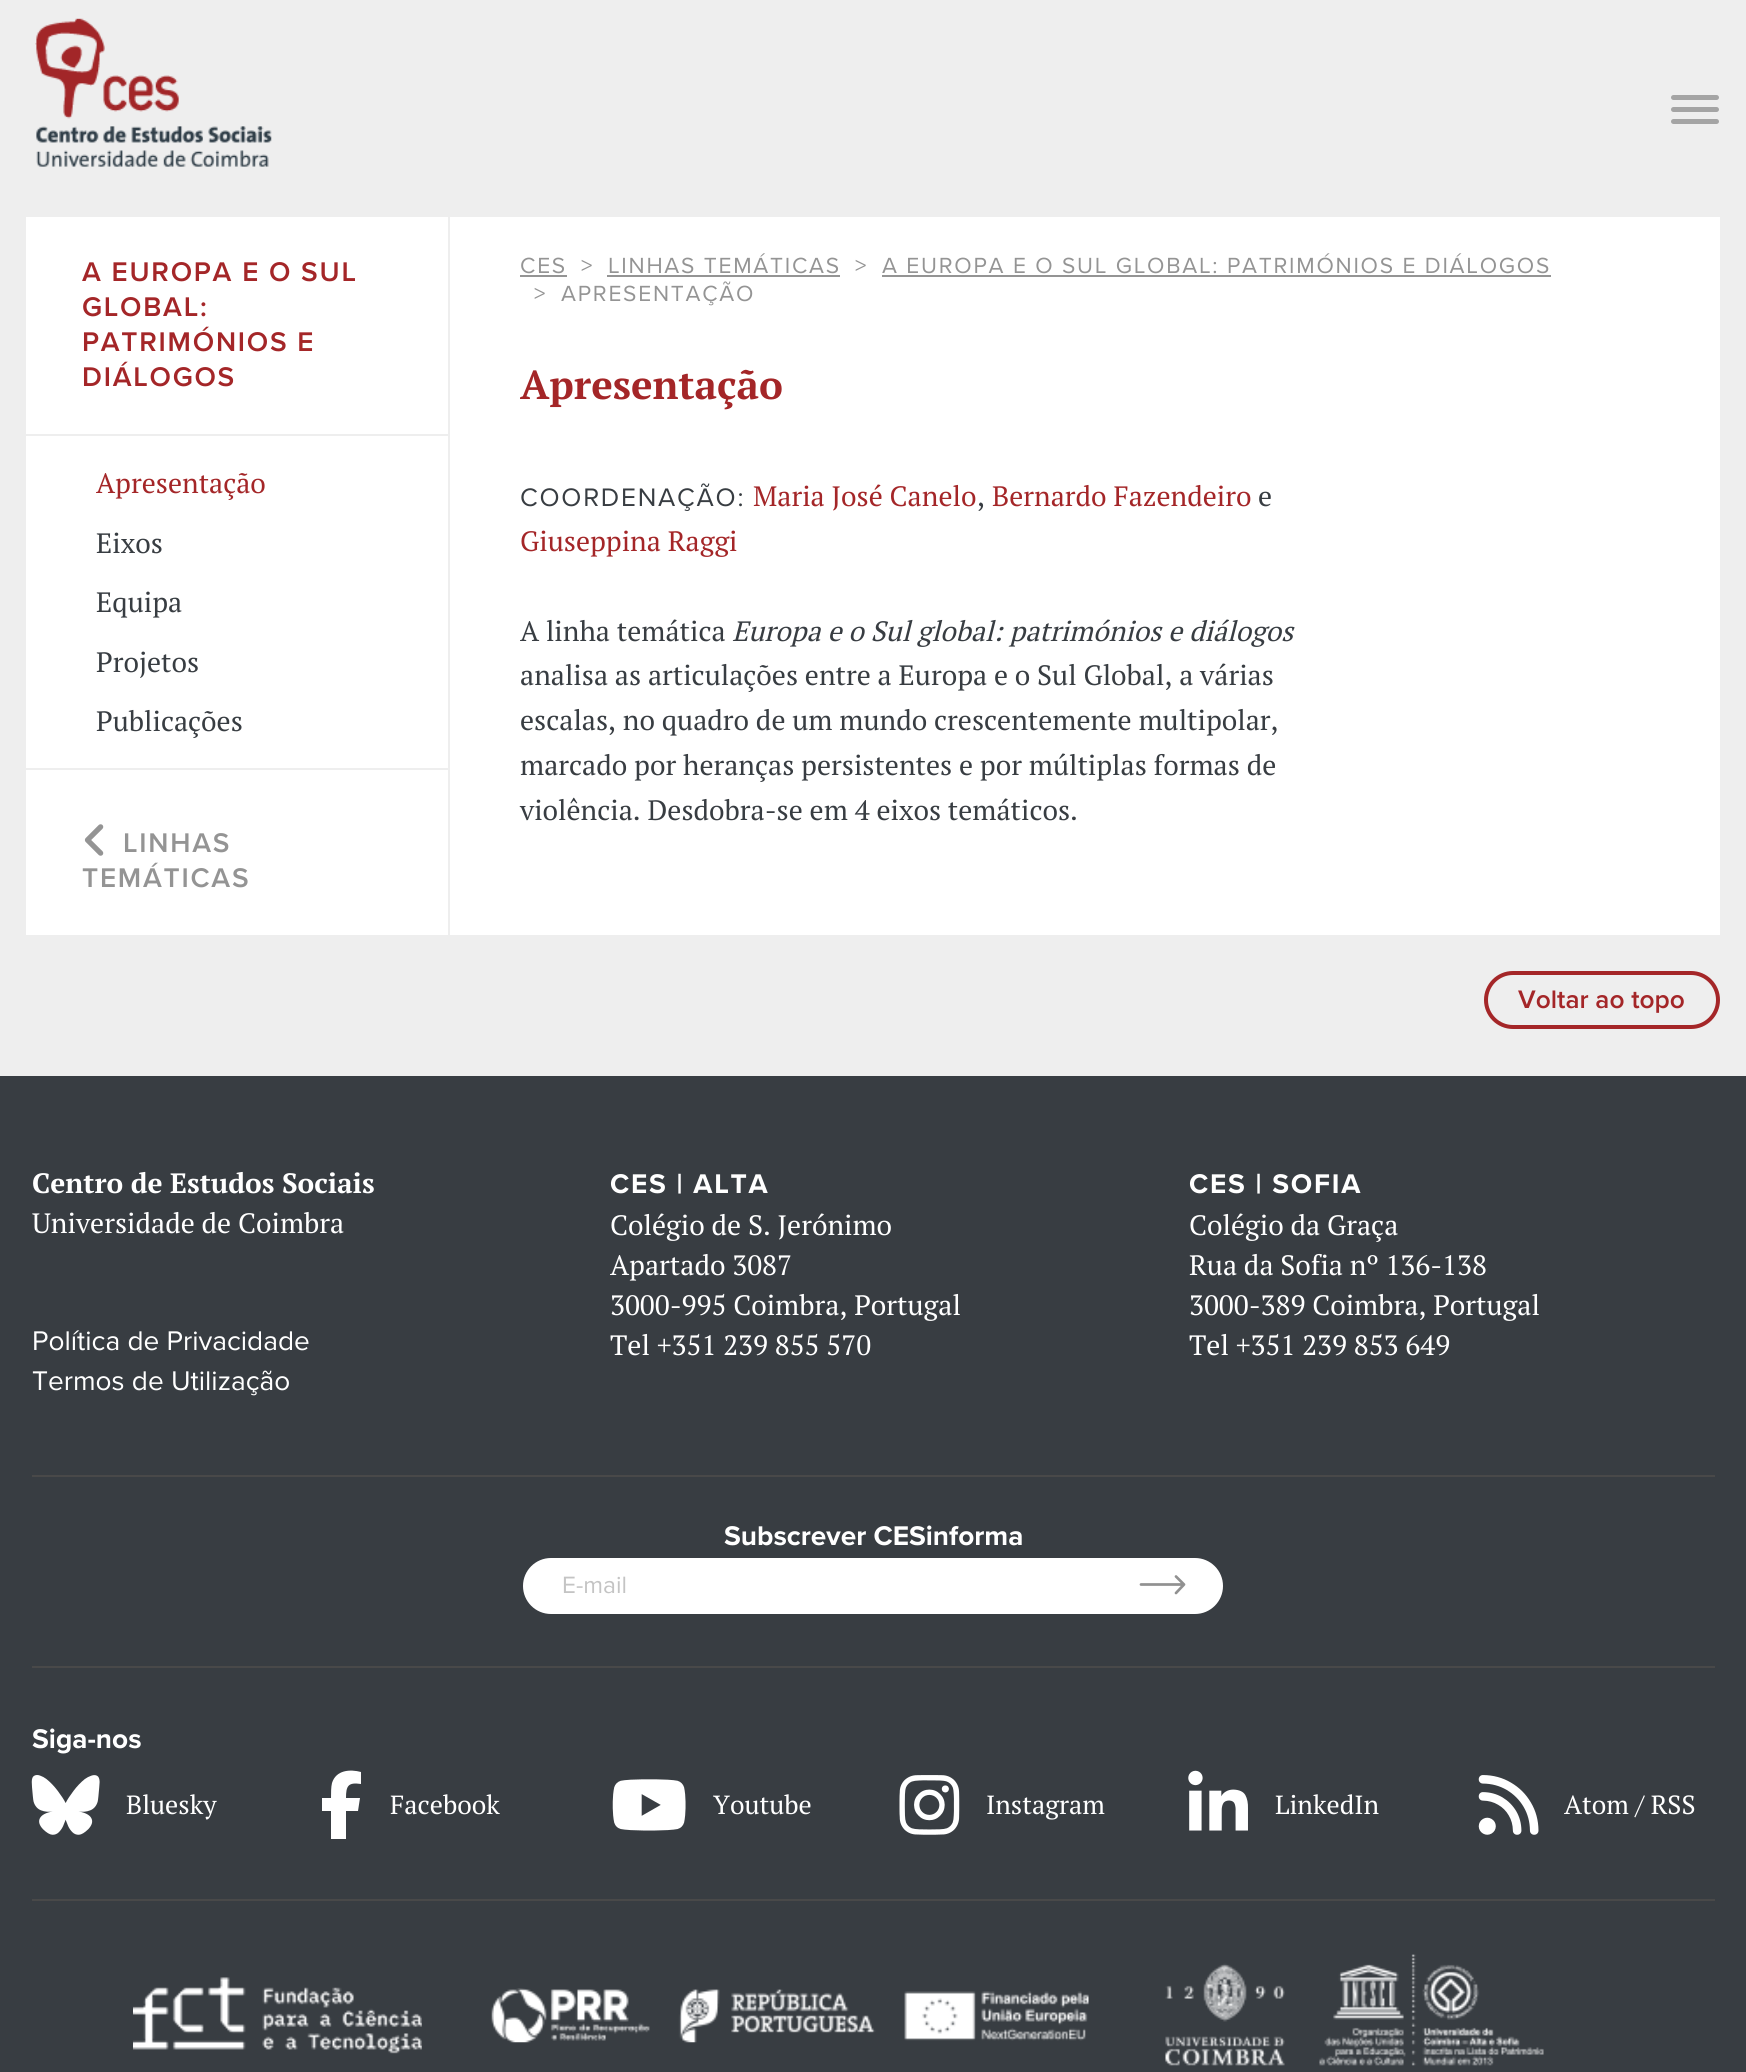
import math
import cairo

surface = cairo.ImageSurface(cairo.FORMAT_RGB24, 1746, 2072)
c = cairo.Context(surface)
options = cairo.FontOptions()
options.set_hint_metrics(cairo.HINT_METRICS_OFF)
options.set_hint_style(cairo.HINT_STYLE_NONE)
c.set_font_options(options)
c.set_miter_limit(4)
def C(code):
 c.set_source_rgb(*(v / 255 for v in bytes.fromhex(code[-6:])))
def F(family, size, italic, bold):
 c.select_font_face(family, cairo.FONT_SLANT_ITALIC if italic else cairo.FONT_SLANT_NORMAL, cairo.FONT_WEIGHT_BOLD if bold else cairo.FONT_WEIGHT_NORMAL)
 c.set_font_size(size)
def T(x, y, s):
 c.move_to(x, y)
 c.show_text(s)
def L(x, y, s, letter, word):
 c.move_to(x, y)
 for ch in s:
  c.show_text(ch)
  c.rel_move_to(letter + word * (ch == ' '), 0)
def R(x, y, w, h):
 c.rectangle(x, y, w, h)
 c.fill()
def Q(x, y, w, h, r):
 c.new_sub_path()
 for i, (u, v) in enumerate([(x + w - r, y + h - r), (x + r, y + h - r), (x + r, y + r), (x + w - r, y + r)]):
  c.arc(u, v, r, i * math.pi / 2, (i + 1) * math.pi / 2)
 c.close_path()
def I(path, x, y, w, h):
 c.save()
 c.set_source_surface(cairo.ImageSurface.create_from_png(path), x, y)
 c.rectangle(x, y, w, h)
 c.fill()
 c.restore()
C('eeeeee')
c.paint()
I('1.png',35,18,237,149)
C('a4a4a4')
Q(1671,107,48,5,2.5)
c.fill()
Q(1671,95,48,5,2.5)
c.fill()
Q(1671,119,48,5,2.5)
c.fill()
C('ffffff')
R(26,217,1694,718)
C('eeeeee')
R(448,217,2,719)
R(26,434,422,2)
F('Proxima Nova SemiBold',28,0,0)
C('a42628')
L(82,281,'A EUROPA E O SUL',1.75,0)
L(82,316,'GLOBAL:',1.75,0)
L(82,351,'PATRIMÓNIOS E',1.75,0)
L(82,386,'DIÁLOGOS',1.75,0)
C('eeeeee')
R(26,768,422,2)
F('PT Serif',28,0,0)
C('a42628')
T(96,493,'Apresentação')
C('383d42')
T(96,553,'Eixos')
T(96,612,'Equipa')
T(96,672,'Projetos')
T(96,731,'Publicações')
I('2.png',84,824,20,32)
F('Proxima Nova SemiBold',28,0,0)
C('949494')
L(123,852,'LINHAS',1.75,0)
L(82,887,'TEMÁTICAS',1.75,0)
F('Proxima Nova',22.75,0,0)
L(520,273,'CES',1.75,0)
R(520,275,47,2)
L(581,273,'>',1.75,0)
L(608,273,'LINHAS TEMÁTICAS',1.75,0)
R(607,275,233,2)
L(855,273,'>',1.75,0)
L(882,273,'A EUROPA E O SUL GLOBAL: PATRIMÓNIOS E DIÁLOGOS',1.75,0)
R(882,275,669,2)
L(534,301,'>',1.75,0)
L(561,301,'APRESENTAÇÃO',1.75,0)
F('PT Serif',40.25,0,1)
C('a42628')
T(520,399,'Apresentação')
F('Proxima Nova',26.25,0,0)
C('383d42')
L(520,506,'COORDENAÇÃO:',1.75,0)
F('PT Serif',28,0,0)
C('a42628')
T(753,506,'Maria José Canelo')
C('383d42')
T(977,506,',')
C('a42628')
T(992,506,'Bernardo Fazendeiro')
C('383d42')
T(1258,506,'e')
C('a42628')
T(520,551,'Giuseppina Raggi')
C('383d42')
T(520,641,'A linha temática')
F('PT Serif',28,1,0)
T(732,641,'Europa e o Sul global: patrimónios e diálogos')
F('PT Serif',28,0,0)
T(520,685,'analisa as articulações entre a Europa e o Sul Global, a várias')
T(520,730,'escalas, no quadro de um mundo crescentemente multipolar,')
T(520,775,'marcado por heranças persistentes e por múltiplas formas de')
T(520,820,'violência. Desdobra-se em 4 eixos temáticos.')
Q(1486,973,232,54,27)
C('a42628')
c.set_line_width(4)
c.stroke()
F('Proxima Nova SemiBold',26.25,0,0)
T(1518,1008,'Voltar ao topo')
C('383d42')
R(0,1076,1746,996)
F('PT Serif',28,0,1)
C('ffffff')
T(32,1193,'Centro de Estudos Sociais')
F('PT Serif',28,0,0)
T(32,1233,'Universidade de Coimbra')
F('Proxima Nova',28,0,0)
T(32,1350,'Política de Privacidade')
T(32,1390,'Termos de Utilização')
F('Proxima Nova',28,0,1)
L(610,1193,'CES | ALTA',1.75,0)
F('PT Serif',28,0,0)
T(610,1235,'Colégio de S. Jerónimo')
T(610,1275,'Apartado 3087')
T(610,1315,'3000-995 Coimbra, Portugal')
T(610,1355,'Tel +351 239 855 570')
F('Proxima Nova',28,0,1)
L(1189,1193,'CES | SOFIA',1.75,0)
F('PT Serif',28,0,0)
T(1189,1235,'Colégio da Graça')
T(1189,1275,'Rua da Sofia nº 136-138')
T(1189,1315,'3000-389 Coimbra, Portugal')
T(1189,1355,'Tel +351 239 853 649')
C('494949')
R(32,1475,1683,2)
F('Proxima Nova',28,0,1)
C('ffffff')
T(724,1545,'Subscrever CESinforma')
Q(523,1558,700,56,28)
c.fill()
F('Proxima Nova',24.5,0,0)
C('c4c4c4')
T(562,1593,'E-mail')
c.new_path()
c.move_to(1141,1584.5)
c.line_to(1184,1584.5)
c.move_to(1176,1576.5)
c.line_to(1184,1584.5)
c.line_to(1176,1593)
C('919191')
c.set_line_width(2.7)
c.set_line_cap(cairo.LINE_CAP_ROUND)
c.set_line_join(cairo.LINE_JOIN_ROUND)
c.stroke()
C('494949')
R(32,1666,1683,2)
F('Proxima Nova',28,0,1)
C('ffffff')
T(32,1748,'Siga-nos')
I('3.png',31,1775,69,60)
F('PT Serif',26.25,0,0)
T(126,1814,'Bluesky')
c.new_path()
c.move_to(331,1811)
c.line_to(331,1839)
c.line_to(331,1811)
c.line_to(331,1839)
c.line_to(346,1839)
c.line_to(346,1811)
c.line_to(358,1811)
c.line_to(360,1798)
c.line_to(346,1798)
c.curve_to(346,1786,348,1782,361,1784)
c.line_to(361,1772)
c.curve_to(350,1769,336,1770,332,1783)
c.curve_to(331,1787,331,1793,331,1798)
c.line_to(322,1798)
c.line_to(322,1811)
c.close_path()
c.fill()
T(390,1814,'Facebook')
I('4.png',612,1779,74,52)
T(713,1814,'Youtube')
I('5.png',899,1775,61,60)
T(986,1814,'Instagram')
I('6.png',1188,1770,60,61)
T(1275,1814,'LinkedIn')
I('7.png',1478,1775,61,60)
T(1564,1814,'Atom / RSS')
C('494949')
R(32,1899,1683,2)
I('8.png',133,1977,289,77)
I('9.png',491,1988,598,55)
I('10.png',1165,1954,379,112)
surface.write_to_png('o.png')
